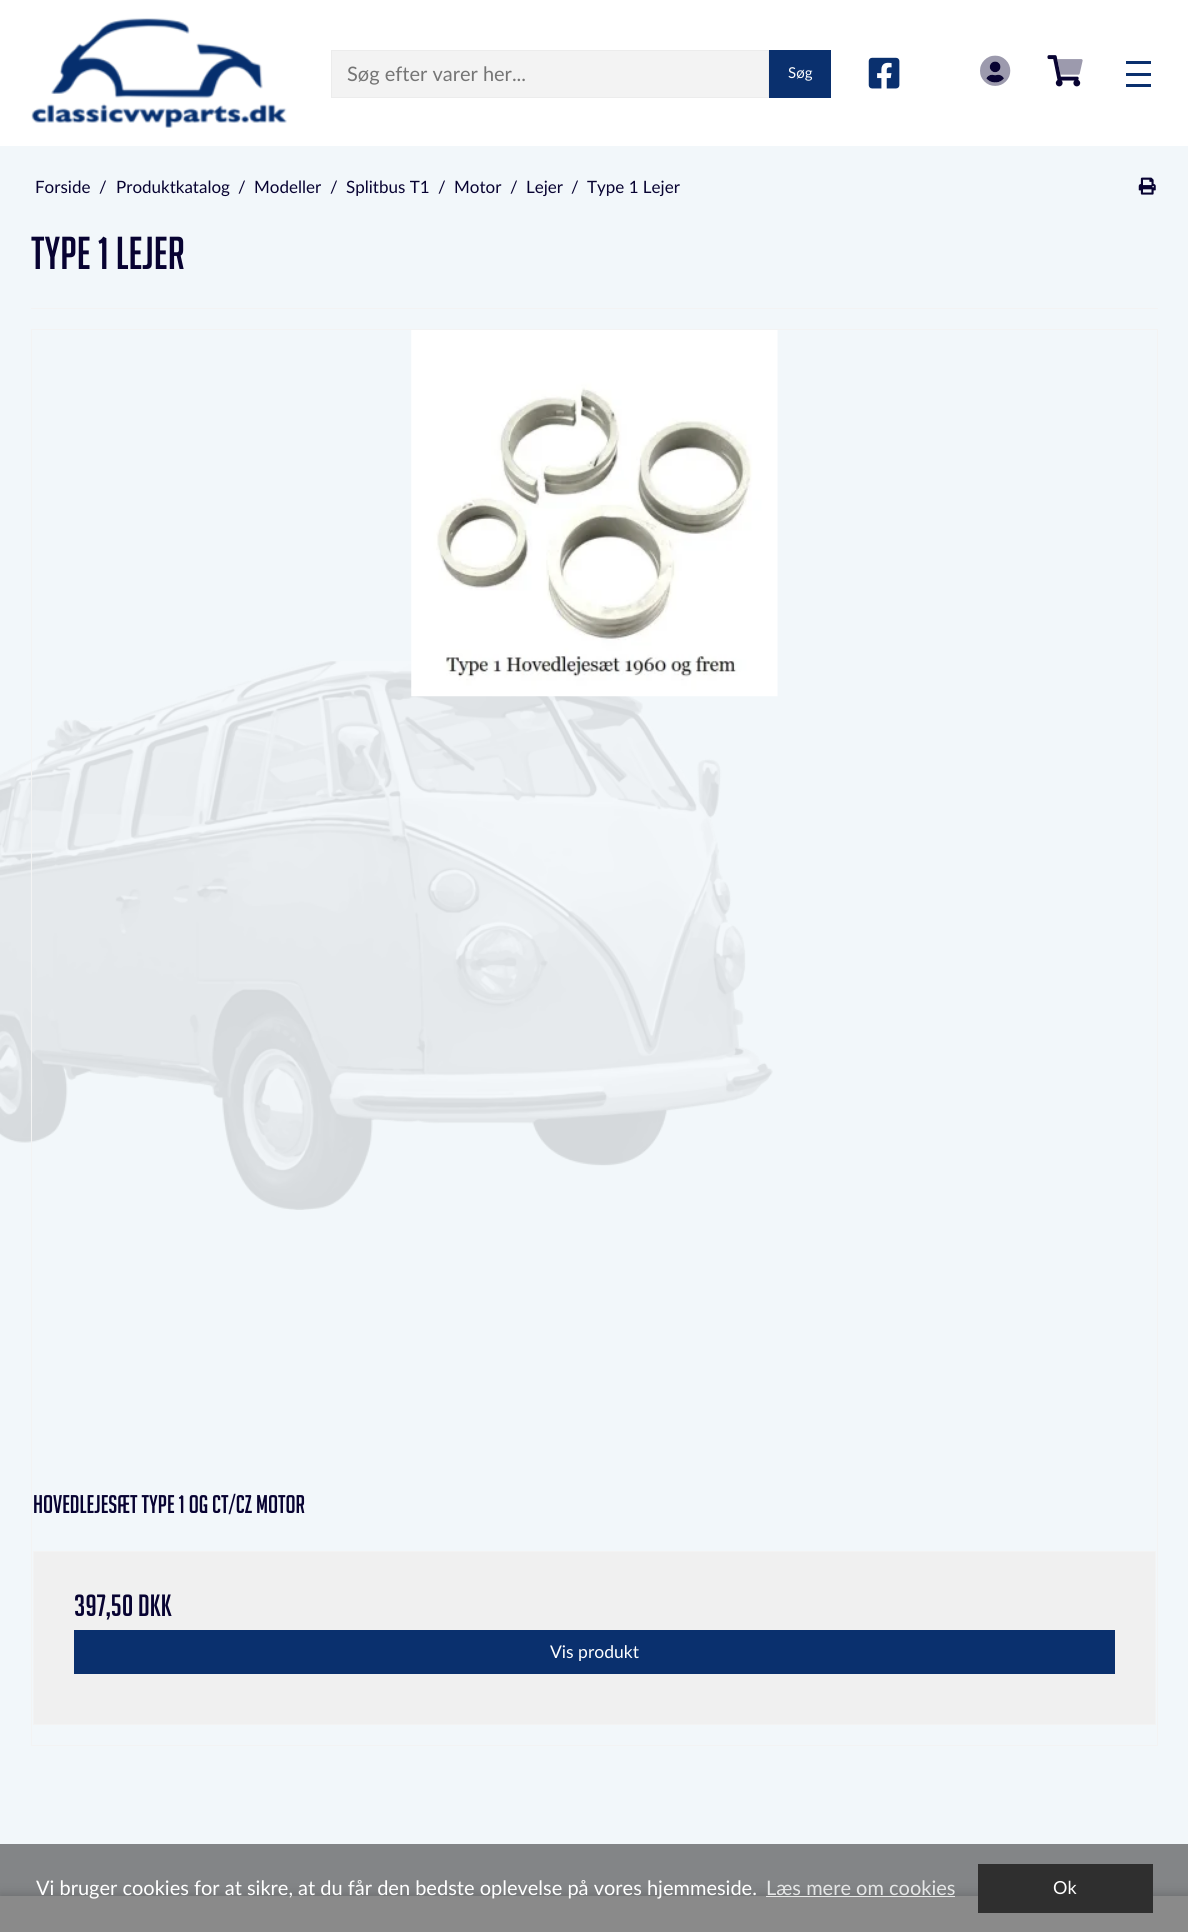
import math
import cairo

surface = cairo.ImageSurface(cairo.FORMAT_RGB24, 1188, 1932)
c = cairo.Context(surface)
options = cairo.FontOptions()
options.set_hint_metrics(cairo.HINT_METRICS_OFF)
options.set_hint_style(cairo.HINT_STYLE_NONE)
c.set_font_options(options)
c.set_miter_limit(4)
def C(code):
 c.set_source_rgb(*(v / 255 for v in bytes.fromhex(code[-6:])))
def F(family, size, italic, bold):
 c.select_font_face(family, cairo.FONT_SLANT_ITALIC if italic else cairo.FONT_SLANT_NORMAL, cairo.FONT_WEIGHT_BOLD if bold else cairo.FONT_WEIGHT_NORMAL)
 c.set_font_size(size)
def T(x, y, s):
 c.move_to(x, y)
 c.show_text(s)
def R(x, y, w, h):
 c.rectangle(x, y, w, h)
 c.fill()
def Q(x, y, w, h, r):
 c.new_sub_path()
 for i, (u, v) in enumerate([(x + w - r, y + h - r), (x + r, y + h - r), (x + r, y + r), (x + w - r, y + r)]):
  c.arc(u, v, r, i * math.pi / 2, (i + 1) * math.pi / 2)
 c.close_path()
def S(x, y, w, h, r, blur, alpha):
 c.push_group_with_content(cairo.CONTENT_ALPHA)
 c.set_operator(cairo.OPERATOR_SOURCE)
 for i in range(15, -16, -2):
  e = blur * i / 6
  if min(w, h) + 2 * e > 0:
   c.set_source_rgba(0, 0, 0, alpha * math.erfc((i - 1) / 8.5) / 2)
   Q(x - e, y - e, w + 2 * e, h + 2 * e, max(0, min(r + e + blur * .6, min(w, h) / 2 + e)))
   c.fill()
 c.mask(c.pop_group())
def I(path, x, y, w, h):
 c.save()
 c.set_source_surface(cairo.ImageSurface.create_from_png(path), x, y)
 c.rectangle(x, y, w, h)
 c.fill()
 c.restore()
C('ffffff')
c.paint()
C('8a8a8a')
R(0,1896,1188,36)
I('1.png',31,18,256,110)
C('f3f3f3')
c.rectangle(331.5,50.5,437,47)
c.fill_preserve()
C('ececec')
c.set_line_width(1)
c.stroke()
F('Lato',20,0,0)
C('757575')
T(347,81,'Søg efter varer her...')
C('0a306e')
R(769,50,62,48)
F('Lato',15,0,0)
C('ffffff')
T(788,78,'Søg')
I('2.png',868,57,32,32)
I('4.png',986,61,18,22)
I('3.png',980,55,31,31)
I('5.png',1047,55,34,32)
I('6.png',1057,59,26,16)
C('0a306e')
R(1126,61,25,3)
R(1126,73,25,3)
R(1126,84,25,3)
C('f2f7fa')
R(0,146,1188,1698)
C('838587')
R(0,1844,1188,52)
I('7.png',0,661,773,549)
F('Lato',17,0,0)
C('080332')
T(35,193,'Forside')
T(99,193,'/')
T(116,193,'Produktkatalog')
T(238,193,'/')
T(254,193,'Modeller')
T(330,193,'/')
T(346,193,'Splitbus T1')
T(438,193,'/')
T(454,193,'Motor')
T(510,193,'/')
T(526,193,'Lejer')
T(571,193,'/')
T(587,193,'Type 1 Lejer')
I('8.png',1138,177,18,18)
C('f3f3f3')
R(31,308,1127,1)
F('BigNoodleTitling',45,0,0)
C('080332')
T(31,269,'Type 1 Lejer')
c.rectangle(31.5,329.5,1126,1416)
C('f3f3f3')
c.stroke()
I('9.png',411,330,367,367)
F('BigNoodleTitling',25,0,0)
C('080332')
T(33,1513,'Hovedlejesæt type 1 og CT/CZ motor')
C('f0f0f0')
c.rectangle(33.5,1551.5,1122,173)
c.fill_preserve()
C('f3f3f3')
c.stroke()
F('BigNoodleTitling',30,0,0)
C('080332')
T(74,1616,'397,50 DKK')
C('0a306e')
R(74,1630,1041,44)
F('Lato',17.5,0,0)
C('ffffff')
T(550,1658,'Vis produkt')
c.save()
c.set_fill_rule(cairo.FILL_RULE_EVEN_ODD)
c.new_path()
c.move_to(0,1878)
c.line_to(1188,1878)
c.line_to(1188,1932)
c.line_to(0,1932)
c.close_path()
c.move_to(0,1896)
c.line_to(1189,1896)
c.line_to(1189,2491)
c.line_to(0,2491)
c.close_path()
c.clip()
C('000000')
S(0,1894,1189,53,0,5,.18)
c.restore()
F('Lato',20,0,0)
T(36,1895,'Vi bruger cookies for at sikre, at du får den bedste oplevelse på vores hjemmeside.')
C('e5e6e6')
T(766,1895,'Læs mere om cookies')
C('e7e7e7')
R(766,1896,189,1)
C('2f2f2f')
R(978,1864,175,49)
F('Lato',18,0,0)
C('ffffff')
T(1053,1894,'Ok')
surface.write_to_png('o.png')
